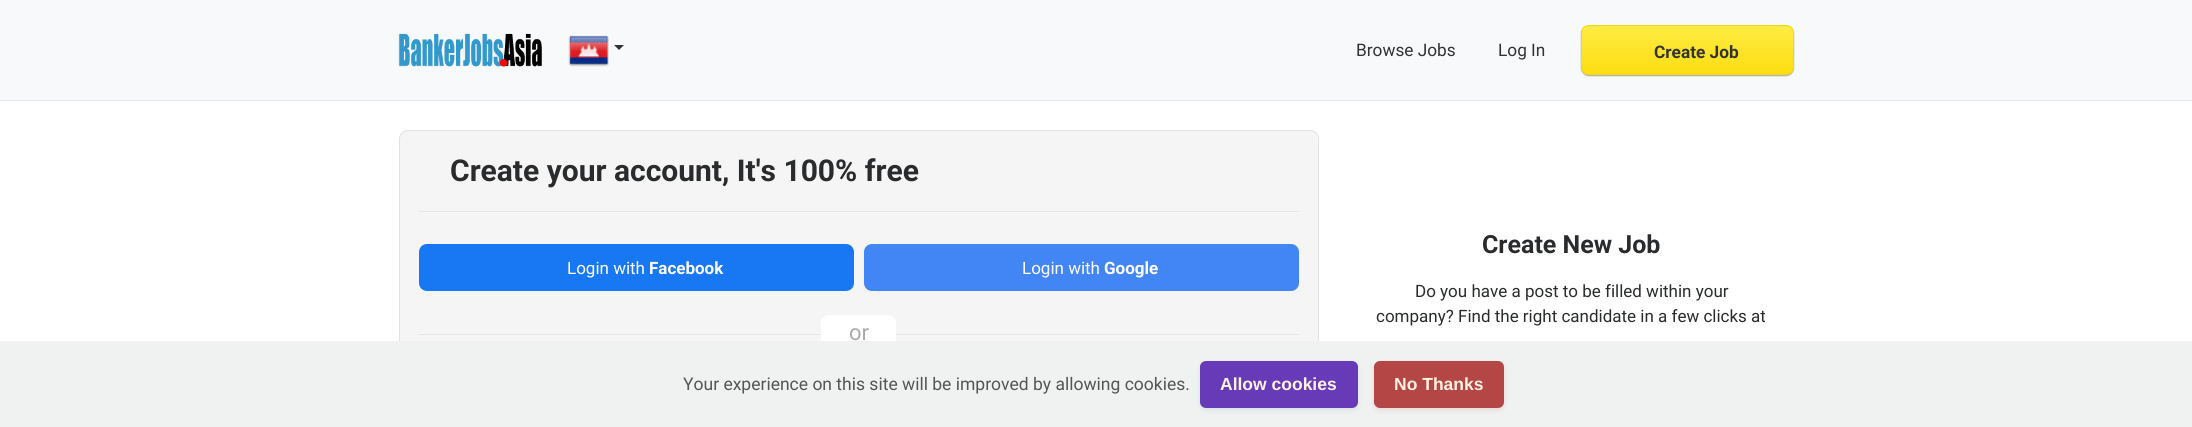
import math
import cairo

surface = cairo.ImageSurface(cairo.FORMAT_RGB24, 2192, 427)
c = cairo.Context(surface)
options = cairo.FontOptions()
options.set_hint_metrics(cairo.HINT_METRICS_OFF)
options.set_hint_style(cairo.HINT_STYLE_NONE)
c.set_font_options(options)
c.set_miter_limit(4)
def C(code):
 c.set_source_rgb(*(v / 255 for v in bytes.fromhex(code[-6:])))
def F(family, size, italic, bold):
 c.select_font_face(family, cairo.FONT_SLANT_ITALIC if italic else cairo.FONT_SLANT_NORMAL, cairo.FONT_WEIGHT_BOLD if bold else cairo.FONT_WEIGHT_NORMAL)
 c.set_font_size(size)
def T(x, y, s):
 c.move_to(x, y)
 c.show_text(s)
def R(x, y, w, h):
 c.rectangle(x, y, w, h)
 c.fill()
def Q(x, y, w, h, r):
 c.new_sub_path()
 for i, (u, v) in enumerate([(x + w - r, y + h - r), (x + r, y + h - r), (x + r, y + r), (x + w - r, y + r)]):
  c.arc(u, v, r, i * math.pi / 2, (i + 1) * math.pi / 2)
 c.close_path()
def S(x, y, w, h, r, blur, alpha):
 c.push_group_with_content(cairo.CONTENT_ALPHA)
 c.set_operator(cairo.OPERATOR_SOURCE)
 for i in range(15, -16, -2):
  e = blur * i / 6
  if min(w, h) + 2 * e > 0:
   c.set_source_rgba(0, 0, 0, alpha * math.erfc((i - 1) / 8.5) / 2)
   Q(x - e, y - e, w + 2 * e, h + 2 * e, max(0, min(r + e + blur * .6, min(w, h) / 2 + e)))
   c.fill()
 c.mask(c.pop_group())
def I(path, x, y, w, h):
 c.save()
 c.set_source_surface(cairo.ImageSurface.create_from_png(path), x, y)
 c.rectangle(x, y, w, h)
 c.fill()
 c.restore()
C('ffffff')
c.paint()
C('f8f9fa')
R(0,0,2192,100)
C('e7e7e7')
R(0,100,2192,1)
I('1.png',398,33,144,34)
I('2.png',568,35,41,32)
C('333333')
c.new_path()
c.move_to(614,45)
c.line_to(624,45)
c.line_to(619,50)
c.close_path()
c.fill()
F('Roboto',17.25,0,0)
T(1356,56,'Browse Jobs')
T(1498,56,'Log In')
C('aaaaaa')
S(1581,26,213,50,8,.5,1)
c.save()
Q(1581,25,213,50,8)
c.clip()
gradient = cairo.LinearGradient(1688,26,1688,74)
gradient.add_color_stop_rgba(0,1,0.922,0.263,1)
gradient.add_color_stop_rgba(1,0.988,0.871,0.067,1)
c.set_source(gradient)
R(1581,26,213,48)
c.restore()
Q(1581.5,25.5,212,49,7.5)
C('f6d80f')
c.set_line_width(1)
c.stroke()
F('Roboto',17.25,0,1)
C('333333')
T(1654,58,'Create Job')
C('f5f5f5')
Q(399.5,130.5,919,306,8.5)
c.fill_preserve()
C('e2e2e2')
c.stroke()
C('e6e6e6')
R(419,211,880,1)
F('Roboto',30,0,1)
C('292b2c')
T(450,181,'Create your account, It\'s 100% free')
C('1877f2')
Q(419,244,435,47,8)
c.fill()
F('Roboto',17,0,0)
C('ffffff')
T(567,274,'Login with')
F('Roboto',17,0,1)
T(649,274,'Facebook')
C('4285f4')
Q(864,244,435,47,8)
c.fill()
F('Roboto',17,0,0)
C('ffffff')
T(1022,274,'Login with')
F('Roboto',17,0,1)
T(1104,274,'Google')
C('e6e6e6')
R(419,334,880,1)
C('ffffff')
Q(821,315,75,34,8)
c.fill()
F('Roboto',22,0,0)
C('aaaaaa')
T(849,340,'or')
F('Roboto',25,0,1)
C('292b2c')
T(1482,253,'Create New Job')
F('Roboto',17,0,0)
T(1415,297,'Do you have a post to be filled within your')
T(1376,322,'company? Find the right candidate in a few clicks at')
C('f0f2f1')
R(0,341,2192,86)
F('Roboto',17.5,0,0)
C('555555')
T(683,390,'Your experience on this site will be improved by allowing cookies.')
C('4682b4')
S(1200,364,158,46,6,3,.15)
C('673ab7')
Q(1200,361,158,47,6)
c.fill()
F('Liberation Sans',17.5,0,1)
C('fff2e0')
T(1220,390,'Allow cookies')
C('b44646')
S(1374,364,130,46,6,3,.15)
C('b44646')
Q(1374,361,130,47,6)
c.fill()
C('fff2e0')
T(1394,390,'No Thanks')
surface.write_to_png('o.png')
